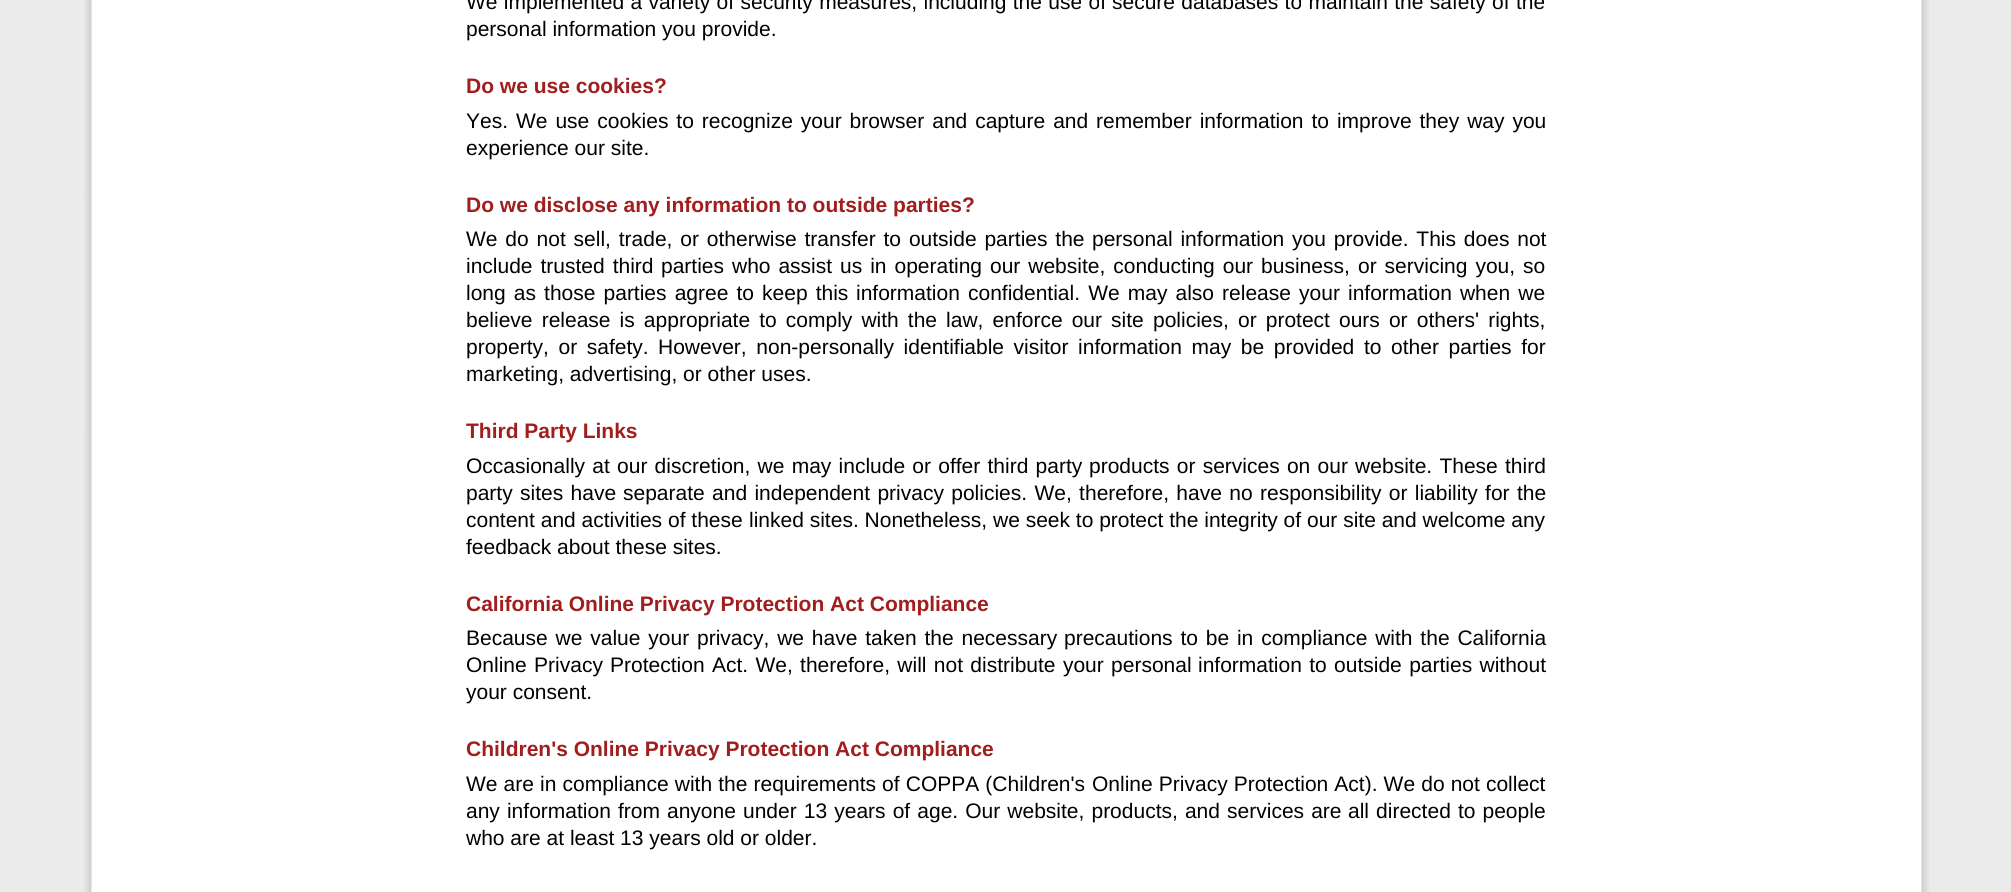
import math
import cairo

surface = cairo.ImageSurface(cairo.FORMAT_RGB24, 2011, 892)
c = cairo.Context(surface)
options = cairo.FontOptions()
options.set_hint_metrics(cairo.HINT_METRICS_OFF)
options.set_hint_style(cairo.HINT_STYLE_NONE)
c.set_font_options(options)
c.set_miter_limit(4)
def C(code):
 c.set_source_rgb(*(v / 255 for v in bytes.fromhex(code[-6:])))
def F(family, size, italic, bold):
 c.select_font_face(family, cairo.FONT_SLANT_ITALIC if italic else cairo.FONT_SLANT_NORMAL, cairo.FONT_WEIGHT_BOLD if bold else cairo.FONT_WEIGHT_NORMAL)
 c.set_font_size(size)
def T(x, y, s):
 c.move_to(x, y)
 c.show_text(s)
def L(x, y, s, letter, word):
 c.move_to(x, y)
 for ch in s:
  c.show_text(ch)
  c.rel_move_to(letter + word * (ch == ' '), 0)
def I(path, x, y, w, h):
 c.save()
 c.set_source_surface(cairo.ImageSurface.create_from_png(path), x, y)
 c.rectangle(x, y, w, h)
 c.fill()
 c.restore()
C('ebebeb')
c.paint()
I('1.png',84,0,1845,892)
F('Liberation Sans',21,0,0)
C('000000')
L(466,9,'We implemented a variety of security measures, including the use of',0,.5)
L(1112,9,'secure databases to maintain the safety of the',0,.5)
T(466,36,'personal information you provide.')
F('Liberation Sans',21,0,1)
C('a01e1e')
T(466,93,'Do we use cookies?')
F('Liberation Sans',21,0,0)
C('000000')
L(466,128,'Yes. We use cookies to recognize your browser and capture and',0,2.1)
L(1096,128,'remember information to improve they way you',0,2.1)
T(466,155,'experience our site.')
F('Liberation Sans',21,0,1)
C('a01e1e')
T(466,212,'Do we disclose any information to outside parties?')
F('Liberation Sans',21,0,0)
C('000000')
L(466,246,'We do not sell, trade, or otherwise transfer to outside parties the',0,2)
L(1092,246,'personal information you provide. This does not',0,2)
L(466,273,'include trusted third',0,2.1)
L(661,273,'parties who assist us in operating our website, conducting our business,',0,2.1)
L(1358,273,'or servicing you, so',0,2.1)
L(466,300,'long as those parties agree to keep this',0,2.25)
L(856,300,'information confidential. We may also release your information when we',0,2.25)
L(466,327,'believe release is appropriate to comply with the law, enforce our site',0,3.25)
L(1153,327,'policies, or protect ours or others\' rights,',0,3.25)
L(466,354,'property, or safety.',0,3.75)
L(658,354,'However, non-personally identifiable visitor information may be provided',0,3.75)
L(1364,354,'to other parties for',0,3.75)
T(466,381,'marketing, advertising, or other uses.')
F('Liberation Sans',21,0,1)
C('a01e1e')
T(466,438,'Third Party Links')
F('Liberation Sans',21,0,0)
C('000000')
L(466,473,'Occasionally at our discretion, we may include or offer third party',0,1.4)
L(1089,473,'products or services on our website. These third',0,1.4)
L(466,500,'party sites have',0,1.5)
L(623,500,'separate and independent privacy policies. We, therefore, have no',0,1.5)
L(1260,500,'responsibility or liability for the',0,1.5)
T(466,527,'content and activities of these')
T(749,527,'linked sites. Nonetheless, we seek to protect the integrity of our site and welcome any')
T(466,554,'feedback about these sites.')
F('Liberation Sans',21,0,1)
C('a01e1e')
T(466,611,'California Online Privacy Protection Act Compliance')
F('Liberation Sans',21,0,0)
C('000000')
L(466,645,'Because we value your privacy, we have taken the necessary',0,2)
L(1064,645,'precautions to be in compliance with the California',0,2)
L(466,672,'Online Privacy',0,1.5)
L(610,672,'Protection Act. We, therefore, will not distribute your personal',0,1.5)
L(1198,672,'information to outside parties without',0,1.5)
T(466,699,'your consent.')
F('Liberation Sans',21,0,1)
C('a01e1e')
T(466,756,'Children\'s Online Privacy Protection Act Compliance')
F('Liberation Sans',21,0,0)
C('000000')
L(466,791,'We are in compliance with the requirements of COPPA (Children\'s',0,.25)
L(1092,791,'Online Privacy Protection Act). We do not collect',0,.25)
L(466,818,'any information from',0,1.25)
L(667,818,'anyone under 13 years of age. Our website, products, and services are',0,1.25)
L(1348,818,'all directed to people',0,1.25)
T(466,845,'who are at least 13 years old or older.')
surface.write_to_png('o.png')
